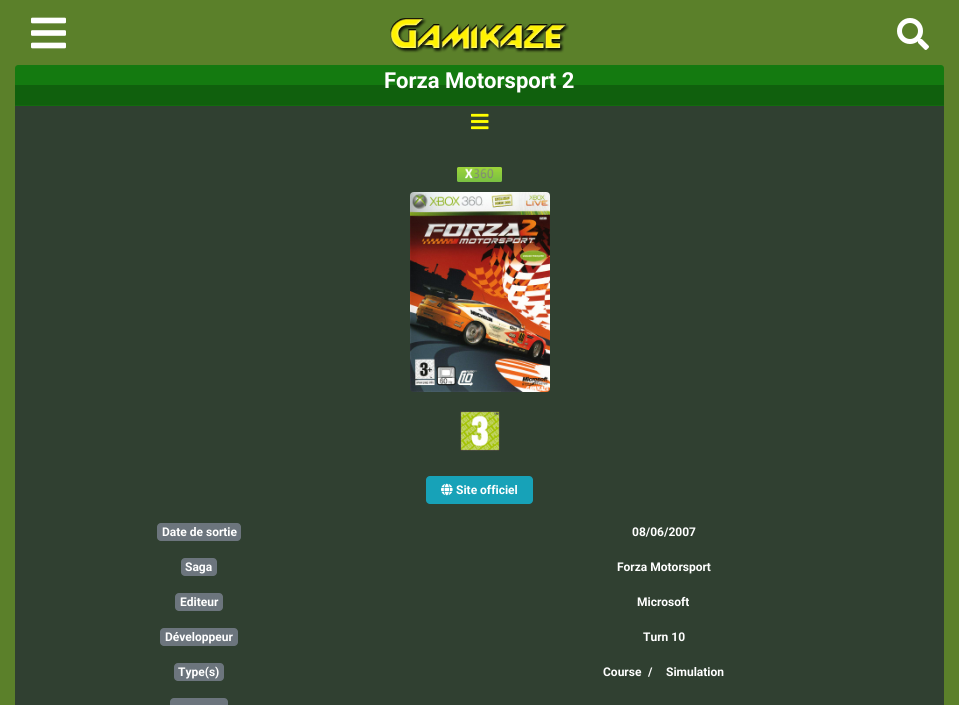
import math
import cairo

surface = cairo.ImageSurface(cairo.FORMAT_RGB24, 959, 705)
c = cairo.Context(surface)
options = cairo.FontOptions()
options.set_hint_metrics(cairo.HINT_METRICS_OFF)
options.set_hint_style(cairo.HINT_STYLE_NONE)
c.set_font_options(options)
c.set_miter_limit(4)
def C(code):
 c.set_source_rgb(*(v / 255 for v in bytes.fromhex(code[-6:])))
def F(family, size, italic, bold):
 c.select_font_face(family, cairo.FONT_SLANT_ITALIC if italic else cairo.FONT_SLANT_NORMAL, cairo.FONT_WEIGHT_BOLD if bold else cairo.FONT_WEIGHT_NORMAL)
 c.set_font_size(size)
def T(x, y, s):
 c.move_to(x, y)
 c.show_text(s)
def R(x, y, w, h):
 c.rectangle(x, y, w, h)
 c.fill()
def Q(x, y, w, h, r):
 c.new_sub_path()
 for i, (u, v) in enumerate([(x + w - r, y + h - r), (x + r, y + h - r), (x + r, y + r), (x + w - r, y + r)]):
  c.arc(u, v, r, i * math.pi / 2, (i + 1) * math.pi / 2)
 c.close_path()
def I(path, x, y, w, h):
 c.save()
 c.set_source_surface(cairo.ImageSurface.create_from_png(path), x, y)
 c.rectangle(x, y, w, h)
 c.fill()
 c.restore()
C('5b802a')
c.paint()
I('1.png',31,17,35,32)
I('2.png',390,18,179,35)
I('3.png',897,18,32,32)
C('147a10')
c.new_path()
c.move_to(18,65)
c.line_to(941,65)
c.curve_to(942.5,65,944,66.5,944,68)
c.line_to(944,85)
c.line_to(15,85)
c.line_to(15,68)
c.curve_to(15,66.5,16.5,65,18,65)
c.close_path()
c.fill()
C('10600d')
R(15,85,929,20)
C('126b0e')
R(15,105,929,1)
F('Roboto',22,0,1)
C('ffffff')
T(384,88,'Forza Motorsport 2')
C('304031')
R(15,106,929,599)
I('4.png',471,113,18,17)
I('5.png',457,167,45,15)
I('6.png',410,192,140,200)
I('7.png',460,411,40,40)
C('17a2b8')
Q(426,476,107,28,4)
c.fill()
I('8.png',441,483,12,13)
F('Roboto',12,0,1)
C('ffffff')
T(456,494,'Site officiel')
C('6c757d')
Q(157,523,84,18,4)
c.fill()
C('ffffff')
T(162,536,'Date de sortie')
T(632,536,'08/06/2007')
C('6c757d')
Q(181,558,36,18,4)
c.fill()
C('ffffff')
T(185,571,'Saga')
T(617,571,'Forza Motorsport')
C('6c757d')
Q(175,593,48,18,4)
c.fill()
C('ffffff')
T(180,606,'Editeur')
T(637,606,'Microsoft')
C('6c757d')
Q(160,628,78,18,4)
c.fill()
C('ffffff')
T(165,641,'Développeur')
T(643,641,'Turn 10')
C('6c757d')
Q(174,663,50,18,4)
c.fill()
C('ffffff')
T(178,676,'Type(s)')
T(603,676,'Course')
T(648,676,'/')
T(666,676,'Simulation')
C('6c757d')
Q(170,698,58,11,4)
c.fill()
surface.write_to_png('o.png')
